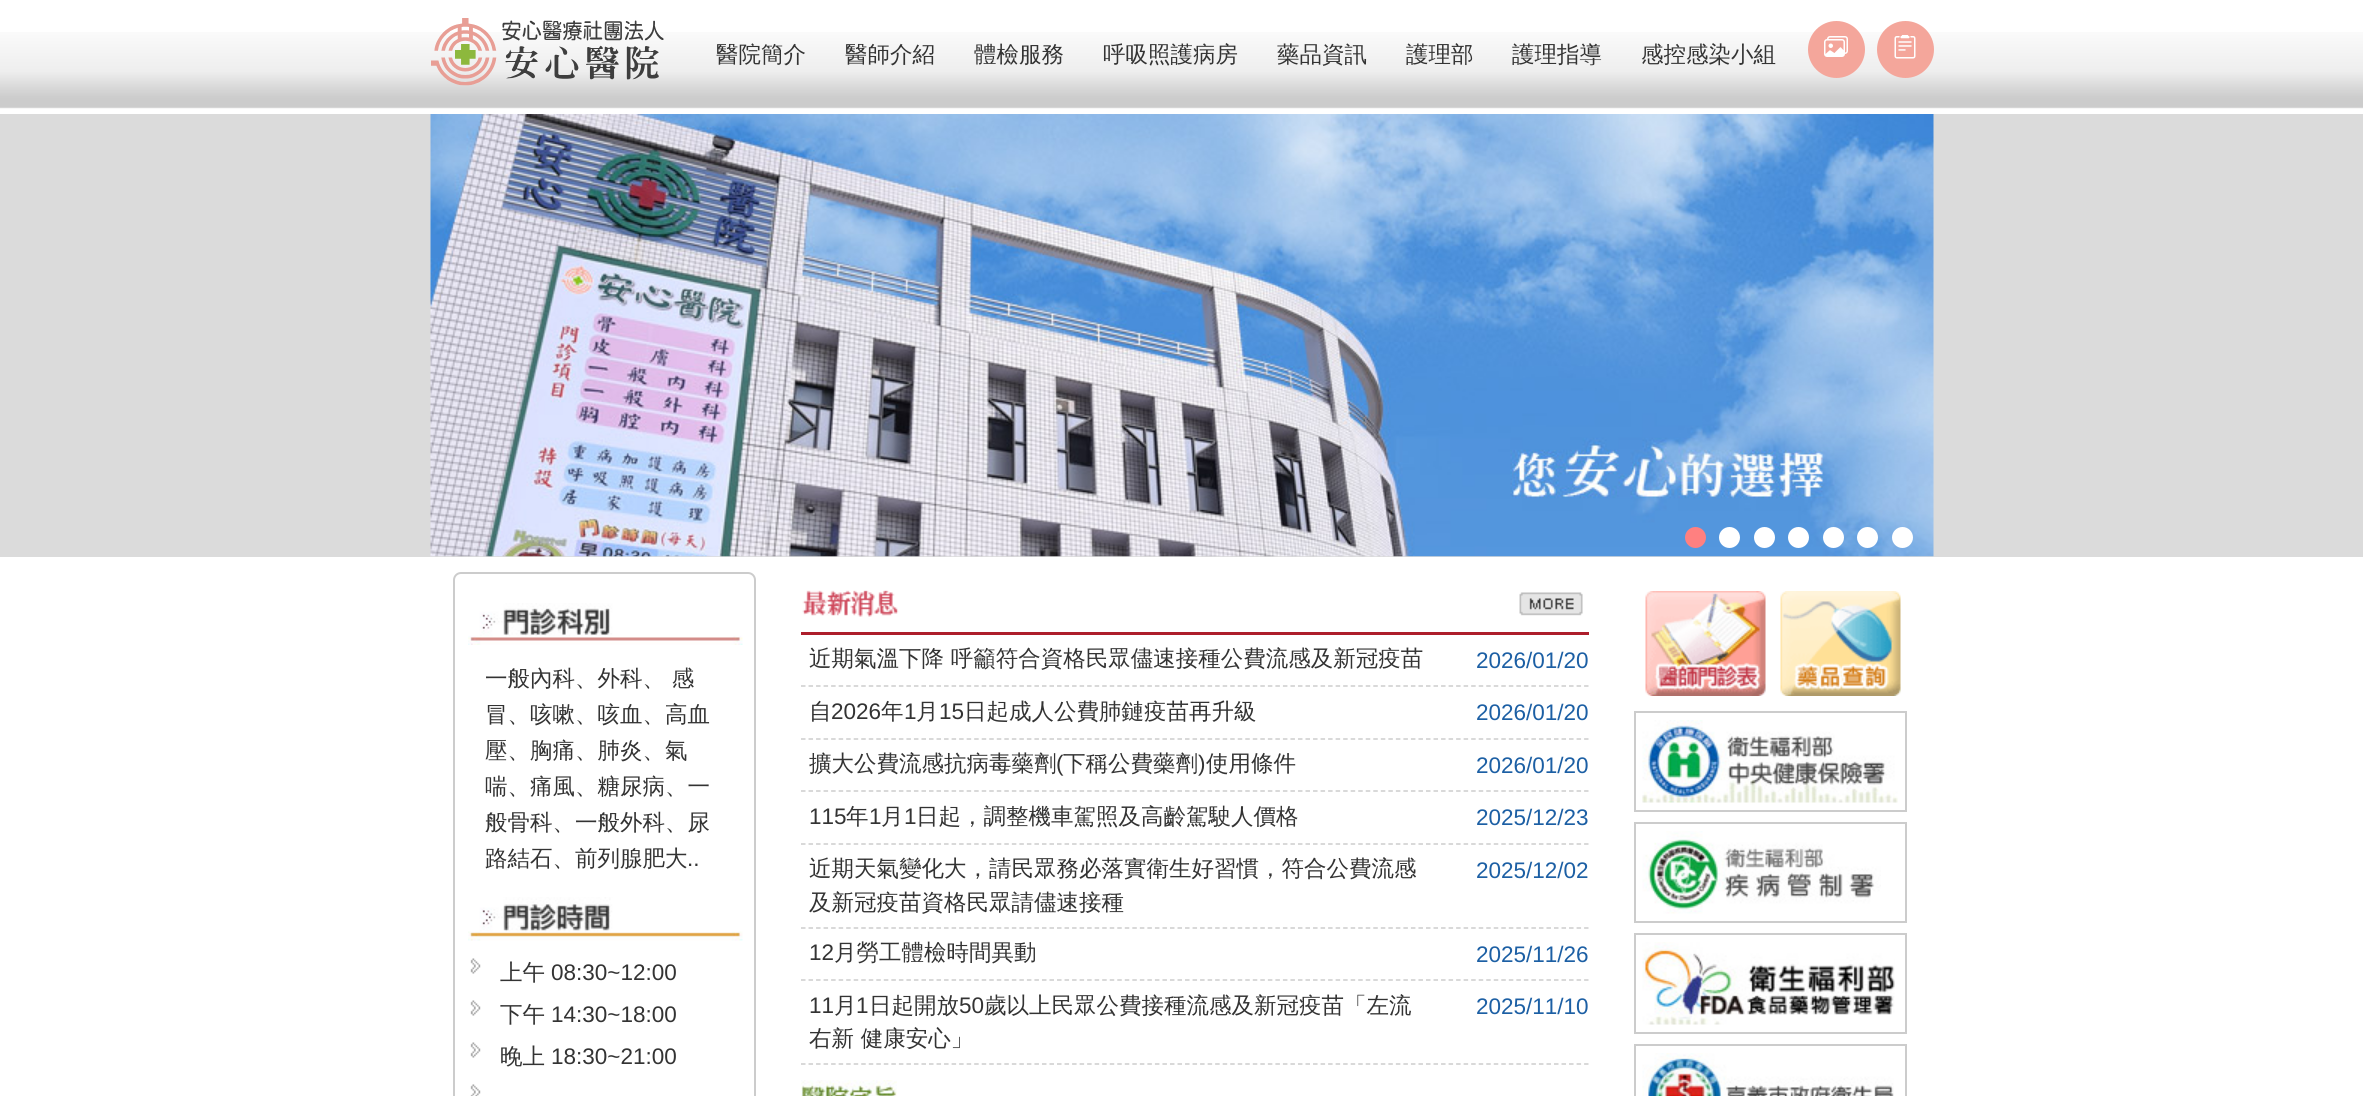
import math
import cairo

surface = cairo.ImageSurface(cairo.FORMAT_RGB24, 2363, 1096)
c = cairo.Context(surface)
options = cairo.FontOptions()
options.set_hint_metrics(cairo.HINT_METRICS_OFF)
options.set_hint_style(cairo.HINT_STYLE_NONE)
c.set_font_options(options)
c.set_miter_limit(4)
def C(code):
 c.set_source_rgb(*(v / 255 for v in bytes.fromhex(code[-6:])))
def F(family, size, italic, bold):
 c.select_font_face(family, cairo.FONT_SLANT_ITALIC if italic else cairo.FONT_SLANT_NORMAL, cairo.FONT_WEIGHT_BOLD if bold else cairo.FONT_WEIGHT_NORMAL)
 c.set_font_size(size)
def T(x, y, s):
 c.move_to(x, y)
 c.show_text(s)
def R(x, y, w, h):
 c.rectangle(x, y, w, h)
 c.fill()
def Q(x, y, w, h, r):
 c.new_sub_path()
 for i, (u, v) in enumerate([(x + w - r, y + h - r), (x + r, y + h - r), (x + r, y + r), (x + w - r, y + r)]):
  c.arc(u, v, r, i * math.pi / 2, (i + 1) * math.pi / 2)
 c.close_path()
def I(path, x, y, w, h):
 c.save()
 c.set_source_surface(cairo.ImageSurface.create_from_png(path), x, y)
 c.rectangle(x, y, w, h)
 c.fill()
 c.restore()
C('ffffff')
c.paint()
I('1.png',0,32,2363,77)
I('2.png',431,18,233,68)
F('WenQuanYi Zen Hei Medium',22.5,0,0)
C('333333')
T(716,62,'醫院簡介')
T(845,62,'醫師介紹')
T(974,62,'體檢服務')
T(1103,62,'呼吸照護病房')
T(1277,62,'藥品資訊')
T(1406,62,'護理部')
T(1512,62,'護理指導')
T(1641,62,'感控感染小組')
C('f4a69b')
c.new_path()
c.arc(1836.5,49.5,28.5,0,2 * math.pi)
c.fill()
I('3.png',1824,36,24,21)
c.arc(1905.5,49.5,28.5,0,2 * math.pi)
c.fill()
I('4.png',1894,35,22,24)
C('dbdbdb')
R(0,114,2363,443)
I('5.png',430,114,1504,443)
C('ff8080')
c.arc(1695.5,537.5,10.5,0,2 * math.pi)
c.fill()
C('ffffff')
c.arc(1729.5,537.5,10.5,0,2 * math.pi)
c.fill()
c.arc(1764.5,537.5,10.5,0,2 * math.pi)
c.fill()
c.arc(1798.5,537.5,10.5,0,2 * math.pi)
c.fill()
c.arc(1833.5,537.5,10.5,0,2 * math.pi)
c.fill()
c.arc(1867.5,537.5,10.5,0,2 * math.pi)
c.fill()
c.arc(1902.5,537.5,10.5,0,2 * math.pi)
c.fill()
Q(454,573,301,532,7)
C('cccccc')
c.stroke()
I('6.png',468,603,275,42)
C('333333')
T(485,686,'一般內科、外科、 感')
T(485,722,'冒、咳嗽、咳血、高血')
T(485,758,'壓、胸痛、肺炎、氣')
T(485,794,'喘、痛風、糖尿病、一')
T(485,830,'般骨科、一般外科、尿')
T(485,866,'路結石、前列腺肥大')
F('Liberation Sans',22.5,0,0)
T(687,866,'..')
I('7.png',468,897,275,44)
I('8.png',470,958,11,16)
F('WenQuanYi Zen Hei Medium',22.5,0,0)
T(500,980,'上午')
F('Liberation Sans',22.5,0,0)
T(551,980,'08:30~12:00')
I('8.png',470,1000,11,16)
F('WenQuanYi Zen Hei Medium',22.5,0,0)
T(500,1022,'下午')
F('Liberation Sans',22.5,0,0)
T(551,1022,'14:30~18:00')
I('8.png',470,1042,11,16)
F('WenQuanYi Zen Hei Medium',22.5,0,0)
T(500,1064,'晚上')
F('Liberation Sans',22.5,0,0)
T(551,1064,'18:30~21:00')
I('9.png',470,1084,11,12)
C('ad1e2b')
R(801,632,788,3)
I('10.png',802,590,97,27)
I('11.png',1519,592,64,24)
c.new_path()
c.move_to(801,686)
c.line_to(1588.5,686)
C('cccccc')
c.set_line_width(1.5)
c.set_dash([4.5,3.03])
c.stroke()
F('WenQuanYi Zen Hei Medium',22.5,0,0)
C('333333')
T(809,666,'近期氣溫下降 呼籲符合資格民眾儘速接種公費流感及新冠疫苗')
F('Liberation Sans',22.5,0,0)
C('1c5fa4')
T(1476,668,'2026/01/20')
c.new_path()
c.move_to(801,739)
c.line_to(1588.5,739)
C('cccccc')
c.stroke()
F('WenQuanYi Zen Hei Medium',22.5,0,0)
C('333333')
T(809,719,'自')
F('Liberation Sans',22.5,0,0)
T(831,719,'2026')
F('WenQuanYi Zen Hei Medium',22.5,0,0)
T(881,719,'年')
F('Liberation Sans',22.5,0,0)
T(904,719,'1')
F('WenQuanYi Zen Hei Medium',22.5,0,0)
T(916,719,'月')
F('Liberation Sans',22.5,0,0)
T(939,719,'15')
F('WenQuanYi Zen Hei Medium',22.5,0,0)
T(964,719,'日起成人公費肺鏈疫苗再升級')
F('Liberation Sans',22.5,0,0)
C('1c5fa4')
T(1476,720,'2026/01/20')
c.new_path()
c.move_to(801,791)
c.line_to(1588.5,791)
C('cccccc')
c.stroke()
F('WenQuanYi Zen Hei Medium',22.5,0,0)
C('333333')
T(809,771,'擴大公費流感抗病毒藥劑')
F('Liberation Sans',22.5,0,0)
T(1056,771,'(')
F('WenQuanYi Zen Hei Medium',22.5,0,0)
T(1063,771,'下稱公費藥劑')
F('Liberation Sans',22.5,0,0)
T(1198,771,')')
F('WenQuanYi Zen Hei Medium',22.5,0,0)
T(1206,771,'使用條件')
F('Liberation Sans',22.5,0,0)
C('1c5fa4')
T(1476,773,'2026/01/20')
c.new_path()
c.move_to(801,844)
c.line_to(1588.5,844)
C('cccccc')
c.stroke()
C('333333')
T(809,824,'115')
F('WenQuanYi Zen Hei Medium',22.5,0,0)
T(846,824,'年')
F('Liberation Sans',22.5,0,0)
T(869,824,'1')
F('WenQuanYi Zen Hei Medium',22.5,0,0)
T(881,824,'月')
F('Liberation Sans',22.5,0,0)
T(904,824,'1')
F('WenQuanYi Zen Hei Medium',22.5,0,0)
T(916,824,'日起，調整機車駕照及高齡駕駛人價格')
F('Liberation Sans',22.5,0,0)
C('1c5fa4')
T(1476,825,'2025/12/23')
c.new_path()
c.move_to(801,928)
c.line_to(1588.5,928)
C('cccccc')
c.stroke()
F('WenQuanYi Zen Hei Medium',22.5,0,0)
C('333333')
T(809,876,'近期天氣變化大，請民眾務必落實衛生好習慣，符合公費流感')
T(809,910,'及新冠疫苗資格民眾請儘速接種')
F('Liberation Sans',22.5,0,0)
C('1c5fa4')
T(1476,878,'2025/12/02')
c.new_path()
c.move_to(801,980)
c.line_to(1588.5,980)
C('cccccc')
c.stroke()
C('333333')
T(809,960,'12')
F('WenQuanYi Zen Hei Medium',22.5,0,0)
T(834,960,'月勞工體檢時間異動')
F('Liberation Sans',22.5,0,0)
C('1c5fa4')
T(1476,962,'2025/11/26')
c.new_path()
c.move_to(801,1064)
c.line_to(1588.5,1064)
C('cccccc')
c.stroke()
C('333333')
T(809,1013,'11')
F('WenQuanYi Zen Hei Medium',22.5,0,0)
T(834,1013,'月')
F('Liberation Sans',22.5,0,0)
T(856,1013,'1')
F('WenQuanYi Zen Hei Medium',22.5,0,0)
T(869,1013,'日起開放')
F('Liberation Sans',22.5,0,0)
T(959,1013,'50')
F('WenQuanYi Zen Hei Medium',22.5,0,0)
T(984,1013,'歲以上民眾公費接種流感及新冠疫苗「左流')
T(809,1046,'右新 健康安心」')
F('Liberation Sans',22.5,0,0)
C('1c5fa4')
T(1476,1014,'2025/11/10')
I('12.png',801,1080,96,16)
I('13.png',1645,591,121,105)
I('14.png',1780,591,121,105)
c.rectangle(1635,712,271,99)
C('cccccc')
c.set_line_width(2)
c.set_dash([])
c.stroke()
I('15.png',1642,720,256,83)
c.rectangle(1635,823,271,99)
c.stroke()
I('16.png',1642,831,239,83)
c.rectangle(1635,934,271,99)
c.stroke()
I('17.png',1642,942,253,83)
c.rectangle(1635,1045,271,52)
c.stroke()
I('18.png',1642,1053,252,43)
surface.write_to_png('o.png')
